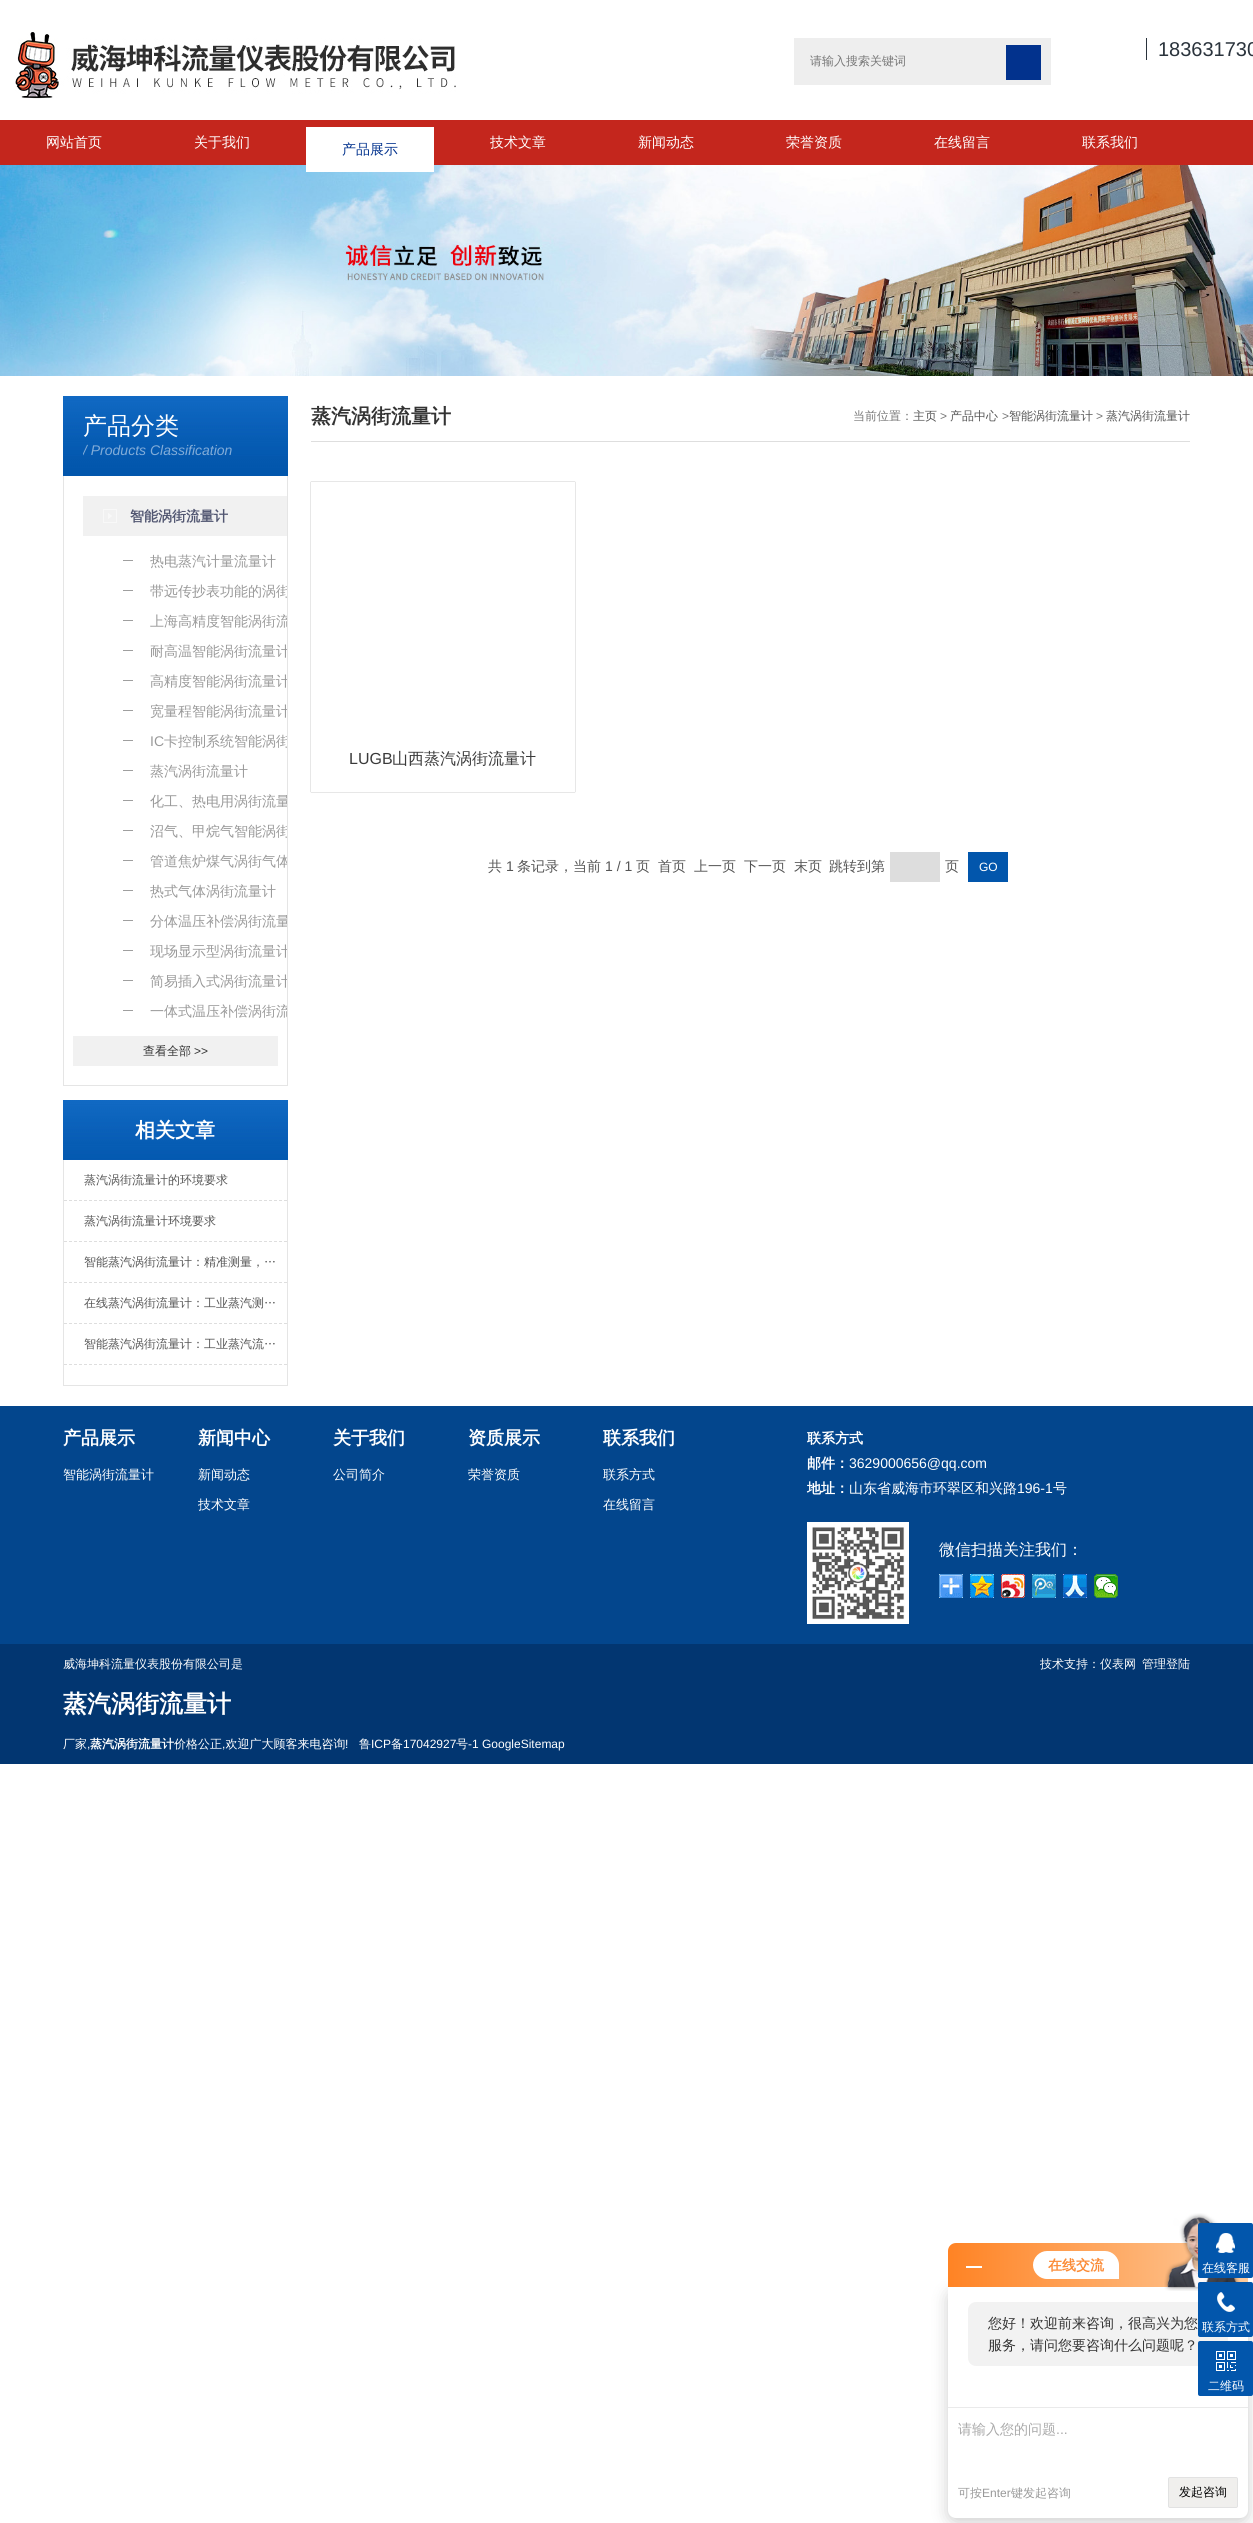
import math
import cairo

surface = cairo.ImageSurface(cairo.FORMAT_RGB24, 1253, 2523)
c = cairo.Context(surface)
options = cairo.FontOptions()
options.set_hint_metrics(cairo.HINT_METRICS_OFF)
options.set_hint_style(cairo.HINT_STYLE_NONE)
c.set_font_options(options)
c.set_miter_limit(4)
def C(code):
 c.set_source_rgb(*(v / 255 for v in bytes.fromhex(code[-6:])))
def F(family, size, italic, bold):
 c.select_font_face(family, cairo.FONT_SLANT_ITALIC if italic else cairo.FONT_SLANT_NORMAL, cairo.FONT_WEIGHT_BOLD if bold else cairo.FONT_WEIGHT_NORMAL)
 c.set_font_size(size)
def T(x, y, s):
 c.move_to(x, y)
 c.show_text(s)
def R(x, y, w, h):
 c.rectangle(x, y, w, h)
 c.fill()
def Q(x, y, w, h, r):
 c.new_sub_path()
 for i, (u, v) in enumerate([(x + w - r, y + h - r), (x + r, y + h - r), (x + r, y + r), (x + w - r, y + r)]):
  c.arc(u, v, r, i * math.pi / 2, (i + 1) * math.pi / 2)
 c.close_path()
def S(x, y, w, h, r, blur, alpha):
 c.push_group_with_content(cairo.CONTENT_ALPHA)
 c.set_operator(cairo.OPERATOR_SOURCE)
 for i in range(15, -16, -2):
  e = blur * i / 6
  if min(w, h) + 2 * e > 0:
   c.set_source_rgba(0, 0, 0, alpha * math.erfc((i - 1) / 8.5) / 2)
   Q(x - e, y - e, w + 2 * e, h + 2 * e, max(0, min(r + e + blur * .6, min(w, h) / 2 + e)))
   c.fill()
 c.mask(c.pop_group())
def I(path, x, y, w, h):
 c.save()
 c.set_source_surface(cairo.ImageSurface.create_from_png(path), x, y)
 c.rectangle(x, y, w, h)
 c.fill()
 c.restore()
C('ffffff')
c.paint()
I('1.png',15,32,441,67)
C('2a333c')
R(1146,38,1,22)
F('Liberation Sans',20,0,0)
T(1158,56,'183631730')
C('eeeeee')
R(794,38,257,47)
F('WenQuanYi Zen Hei Medium',12,0,0)
C('777777')
T(810,65,'请输入搜索关键词')
C('02328d')
R(1006,45,35,35)
C('c4261d')
R(0,120,1253,45)
F('WenQuanYi Zen Hei Medium',14,0,0)
C('ffffff')
T(46,147,'网站首页')
T(194,147,'关于我们')
I('2.png',0,165,1253,211)
R(306,127,128,45)
C('02328d')
T(342,154,'产品展示')
C('ffffff')
T(490,147,'技术文章')
T(638,147,'新闻动态')
T(786,147,'荣誉资质')
T(934,147,'在线留言')
T(1082,147,'联系我们')
I('3.png',63,396,225,80)
F('WenQuanYi Zen Hei Medium',24,0,0)
T(83,434,'产品分类')
c.save()
c.rectangle(83,440,185,20)
c.clip()
F('Liberation Sans',14,1,0)
C('82acd8')
T(83,455,'/ Products Classification')
c.restore()
C('e5e5e5')
R(287,476,1,610)
R(63,1085,225,1)
R(63,476,1,610)
C('f1f1f1')
R(83,496,204,40)
I('4.png',103,509,14,14)
F('WenQuanYi Zen Hei',14,0,1)
C('515671')
T(130,521,'智能涡街流量计')
C('9f9f9f')
R(123,560,10,1)
F('WenQuanYi Zen Hei Medium',14,0,0)
C('999999')
T(150,566,'热电蒸汽计量流量计')
C('9f9f9f')
R(123,590,10,1)
c.save()
c.rectangle(103,576,184,30)
c.clip()
C('999999')
T(150,596,'带远传抄表功能的涡街')
c.restore()
R(123,620,10,1)
c.save()
c.rectangle(103,606,184,30)
c.clip()
C('999999')
T(150,626,'上海高精度智能涡街流')
c.restore()
R(123,650,10,1)
c.save()
c.rectangle(103,636,184,30)
c.clip()
C('999999')
T(150,656,'耐高温智能涡街流量计')
c.restore()
R(123,680,10,1)
c.save()
c.rectangle(103,666,184,30)
c.clip()
C('999999')
T(150,686,'高精度智能涡街流量计')
c.restore()
R(123,710,10,1)
c.save()
c.rectangle(103,696,184,30)
c.clip()
C('999999')
T(150,716,'宽量程智能涡街流量计')
c.restore()
R(123,740,10,1)
F('Liberation Sans',14,0,0)
C('999999')
T(150,746,'IC')
c.save()
c.rectangle(103,726,184,30)
c.clip()
F('WenQuanYi Zen Hei Medium',14,0,0)
T(164,746,'卡控制系统智能涡街')
c.restore()
C('9f9f9f')
R(123,770,10,1)
F('WenQuanYi Zen Hei Medium',14,0,0)
C('999999')
T(150,776,'蒸汽涡街流量计')
C('9f9f9f')
R(123,800,10,1)
c.save()
c.rectangle(103,786,184,30)
c.clip()
C('999999')
T(150,806,'化工、热电用涡街流量')
c.restore()
R(123,830,10,1)
c.save()
c.rectangle(103,816,184,30)
c.clip()
C('999999')
T(150,836,'沼气、甲烷气智能涡街')
c.restore()
R(123,860,10,1)
c.save()
c.rectangle(103,846,184,30)
c.clip()
C('999999')
T(150,866,'管道焦炉煤气涡街气体')
c.restore()
R(123,890,10,1)
C('999999')
T(150,896,'热式气体涡街流量计')
C('9f9f9f')
R(123,920,10,1)
c.save()
c.rectangle(103,906,184,30)
c.clip()
C('999999')
T(150,926,'分体温压补偿涡街流量')
c.restore()
R(123,950,10,1)
c.save()
c.rectangle(103,936,184,30)
c.clip()
C('999999')
T(150,956,'现场显示型涡街流量计')
c.restore()
R(123,980,10,1)
c.save()
c.rectangle(103,966,184,30)
c.clip()
C('999999')
T(150,986,'简易插入式涡街流量计')
c.restore()
R(123,1010,10,1)
c.save()
c.rectangle(103,996,184,30)
c.clip()
C('999999')
T(150,1016,'一体式温压补偿涡街流')
c.restore()
C('f1f1f1')
R(73,1036,205,30)
F('WenQuanYi Zen Hei Medium',12,0,0)
C('333333')
T(143,1055,'查看全部')
F('Liberation Sans',12,0,0)
T(194,1055,'>>')
I('5.png',63,1100,225,60)
F('WenQuanYi Zen Hei',20,0,1)
C('ffffff')
T(135,1137,'相关文章')
C('e5e5e5')
R(287,1160,1,226)
R(63,1385,225,1)
R(63,1160,1,226)
c.new_path()
c.move_to(64,1200.5)
c.line_to(287,1200.5)
C('dedede')
c.set_line_width(1)
c.set_dash([3,2])
c.stroke()
F('WenQuanYi Zen Hei Medium',12,0,0)
C('555555')
T(84,1184,'蒸汽涡街流量计的环境要求')
c.new_path()
c.move_to(64,1241.5)
c.line_to(287,1241.5)
C('dedede')
c.stroke()
C('555555')
T(84,1225,'蒸汽涡街流量计环境要求')
c.new_path()
c.move_to(64,1282.5)
c.line_to(287,1282.5)
C('dedede')
c.stroke()
C('555555')
T(84,1266,'智能蒸汽涡街流量计：精准测量，…')
c.new_path()
c.move_to(64,1323.5)
c.line_to(287,1323.5)
C('dedede')
c.stroke()
C('555555')
T(84,1307,'在线蒸汽涡街流量计：工业蒸汽测…')
c.new_path()
c.move_to(64,1364.5)
c.line_to(287,1364.5)
C('dedede')
c.stroke()
C('555555')
T(84,1348,'智能蒸汽涡街流量计：工业蒸汽流…')
C('dedede')
R(311,441,879,1)
F('WenQuanYi Zen Hei',20,0,1)
C('333333')
T(311,423,'蒸汽涡街流量计')
F('WenQuanYi Zen Hei Medium',12,0,0)
C('777777')
T(853,420,'当前位置：')
C('555555')
T(913,420,'主页')
F('Liberation Sans',12,0,0)
C('777777')
T(940,420,'>')
F('WenQuanYi Zen Hei Medium',12,0,0)
C('555555')
T(950,420,'产品中心')
F('Liberation Sans',12,0,0)
C('777777')
T(1002,420,'>')
F('WenQuanYi Zen Hei Medium',12,0,0)
C('555555')
T(1009,420,'智能涡街流量计')
F('Liberation Sans',12,0,0)
C('777777')
T(1096,420,'>')
F('WenQuanYi Zen Hei Medium',12,0,0)
C('555555')
T(1106,420,'蒸汽涡街流量计')
c.save()
c.set_fill_rule(cairo.FILL_RULE_EVEN_ODD)
c.new_path()
c.move_to(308,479)
c.line_to(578,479)
c.line_to(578,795)
c.line_to(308,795)
c.close_path()
c.move_to(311,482)
c.line_to(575,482)
c.line_to(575,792)
c.line_to(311,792)
c.close_path()
c.clip()
C('000000')
S(311,482,264,310,0,.5,.4)
c.restore()
F('Liberation Sans',16,0,0)
C('3a3a3a')
T(349,764,'LUGB')
F('WenQuanYi Zen Hei Medium',16,0,0)
T(392,764,'山西蒸汽涡街流量计')
F('WenQuanYi Zen Hei Medium',14,0,0)
C('555555')
T(488,871,'共')
F('Liberation Sans',14,0,0)
T(506,871,'1')
F('WenQuanYi Zen Hei Medium',14,0,0)
T(517,871,'条记录，当前')
F('Liberation Sans',14,0,0)
T(605,871,'1 / 1')
F('WenQuanYi Zen Hei Medium',14,0,0)
T(636,871,'页')
T(658,871,'首页')
T(694,871,'上一页')
T(744,871,'下一页')
T(794,871,'末页')
T(829,871,'跳转到第')
C('dddddd')
R(890,852,50,30)
C('555555')
T(945,871,'页')
C('0256ac')
R(968,852,40,30)
F('Liberation Sans',12,0,0)
C('ffffff')
T(979,871,'GO')
C('03468d')
R(0,1406,1253,238)
F('WenQuanYi Zen Hei',18,0,1)
C('ffffff')
T(63,1444,'产品展示')
F('WenQuanYi Zen Hei Medium',13,0,0)
T(63,1479,'智能涡街流量计')
F('WenQuanYi Zen Hei',18,0,1)
T(198,1444,'新闻中心')
F('WenQuanYi Zen Hei Medium',13,0,0)
T(198,1479,'新闻动态')
c.save()
c.rectangle(198,1490,120,30)
c.clip()
T(198,1509,'技术文章')
c.restore()
F('WenQuanYi Zen Hei',18,0,1)
T(333,1444,'关于我们')
F('WenQuanYi Zen Hei Medium',13,0,0)
T(333,1479,'公司简介')
F('WenQuanYi Zen Hei',18,0,1)
T(468,1444,'资质展示')
F('WenQuanYi Zen Hei Medium',13,0,0)
T(468,1479,'荣誉资质')
F('WenQuanYi Zen Hei',18,0,1)
T(603,1444,'联系我们')
F('WenQuanYi Zen Hei Medium',13,0,0)
T(603,1479,'联系方式')
T(603,1509,'在线留言')
F('WenQuanYi Zen Hei',14,0,1)
T(807,1443,'联系方式')
T(807,1468,'邮件：')
F('Liberation Sans',14,0,0)
T(849,1468,'3629000656@qq.com')
F('WenQuanYi Zen Hei',14,0,1)
T(807,1493,'地址：')
F('WenQuanYi Zen Hei Medium',14,0,0)
T(849,1493,'山东省威海市环翠区和兴路')
F('Liberation Sans',14,0,0)
T(1017,1493,'196-1')
F('WenQuanYi Zen Hei Medium',14,0,0)
T(1053,1493,'号')
I('6.png',807,1522,102,102)
F('WenQuanYi Zen Hei Medium',16,0,0)
T(939,1555,'微信扫描关注我们：')
I('7.png',939,1574,24,24)
I('8.png',970,1574,24,24)
I('9.png',1001,1574,24,24)
I('10.png',1032,1574,24,24)
I('11.png',1063,1574,24,24)
I('12.png',1094,1574,24,24)
C('023671')
R(0,1644,1253,120)
F('WenQuanYi Zen Hei Medium',12,0,0)
C('ffffff')
T(63,1668,'威海坤科流量仪表股份有限公司是')
F('WenQuanYi Zen Hei',24,0,1)
T(63,1712,'蒸汽涡街流量计')
F('WenQuanYi Zen Hei Medium',12,0,0)
T(63,1748,'厂家')
F('Liberation Sans',12,0,0)
T(87,1748,',')
F('WenQuanYi Zen Hei',12,0,1)
T(90,1748,'蒸汽涡街流量计')
F('WenQuanYi Zen Hei Medium',12,0,0)
T(174,1748,'价格公正 欢迎广大顾客来电咨询')
F('Liberation Sans',12,0,0)
T(345,1748,'!')
T(222,1748,',')
F('WenQuanYi Zen Hei Medium',12,0,0)
T(359,1748,'鲁')
F('Liberation Sans',12,0,0)
T(371,1748,'ICP')
F('WenQuanYi Zen Hei Medium',12,0,0)
T(391,1748,'备')
F('Liberation Sans',12,0,0)
T(403,1748,'17042927')
F('WenQuanYi Zen Hei Medium',12,0,0)
T(456,1748,'号')
F('Liberation Sans',12,0,0)
T(468,1748,'-1 GoogleSitemap')
F('WenQuanYi Zen Hei Medium',12,0,0)
T(1040,1668,'技术支持：仪表网')
T(1142,1668,'管理登陆')
C('000000')
S(948,2291,300,231,8,8,.2)
gradient = cairo.LinearGradient(948,2265,1248,2265)
gradient.add_color_stop_rgba(0,1,0.514,0.141,1)
gradient.add_color_stop_rgba(1,0.996,0.796,0.612,1)
c.set_source(gradient)
c.new_path()
c.move_to(956,2243)
c.line_to(1240,2243)
c.curve_to(1244.5,2243,1248,2246.5,1248,2251)
c.line_to(1248,2287)
c.line_to(948,2287)
c.line_to(948,2251)
c.curve_to(948,2246.5,951.5,2243,956,2243)
c.close_path()
c.fill()
C('ffffff')
R(966,2266,16,2)
c.new_path()
c.move_to(1047,2251)
c.line_to(1105,2251)
c.curve_to(1112.5,2251,1119,2257.5,1119,2265)
c.line_to(1119,2279)
c.line_to(1047,2279)
c.curve_to(1039.5,2279,1033,2272.5,1033,2265)
c.curve_to(1033,2257.5,1039.5,2251,1047,2251)
c.close_path()
c.fill()
F('WenQuanYi Zen Hei',14,0,1)
C('fb8b36')
T(1048,2270,'在线交流')
C('ffffff')
c.new_path()
c.move_to(948,2287)
c.line_to(1248,2287)
c.line_to(1248,2510)
c.curve_to(1248,2514.5,1244.5,2518,1240,2518)
c.line_to(956,2518)
c.curve_to(951.5,2518,948,2514.5,948,2510)
c.close_path()
c.fill()
I('13.png',1164,2213,76,78)
C('f2f2f2')
Q(968,2302,260,64,8)
c.fill()
F('WenQuanYi Zen Hei Medium',14,0,0)
C('333333')
T(988,2328,'您好！欢迎前来咨询，很高兴为您')
T(988,2350,'服务，请问您要咨询什么问题呢？')
C('eaeaea')
R(948,2407,300,1)
C('aaaaaa')
T(958,2434,'请输入您的问题')
F('Liberation Sans',14,0,0)
T(1056,2434,'...')
F('WenQuanYi Zen Hei Medium',12,0,0)
C('999999')
T(958,2497,'可按')
F('Liberation Sans',12,0,0)
T(982,2497,'Enter')
F('WenQuanYi Zen Hei Medium',12,0,0)
T(1011,2497,'键发起咨询')
C('f0efed')
Q(1168.5,2477.5,69,30,1.5)
c.fill_preserve()
C('e2e2e2')
c.set_dash([])
c.stroke()
C('000000')
T(1179,2496,'发起咨询')
C('0256ac')
Q(1198,2223,55,55,2)
c.fill()
I('14.png',1216,2233,19,20)
C('ffffff')
T(1202,2272,'在线客服')
C('0256ac')
Q(1198,2282,55,55,2)
c.fill()
I('15.png',1217,2292,18,20)
C('ffffff')
T(1202,2331,'联系方式')
C('0256ac')
Q(1198,2341,55,55,2)
c.fill()
I('16.png',1216,2351,20,20)
C('ffffff')
T(1208,2390,'二维码')
surface.write_to_png('o.png')
